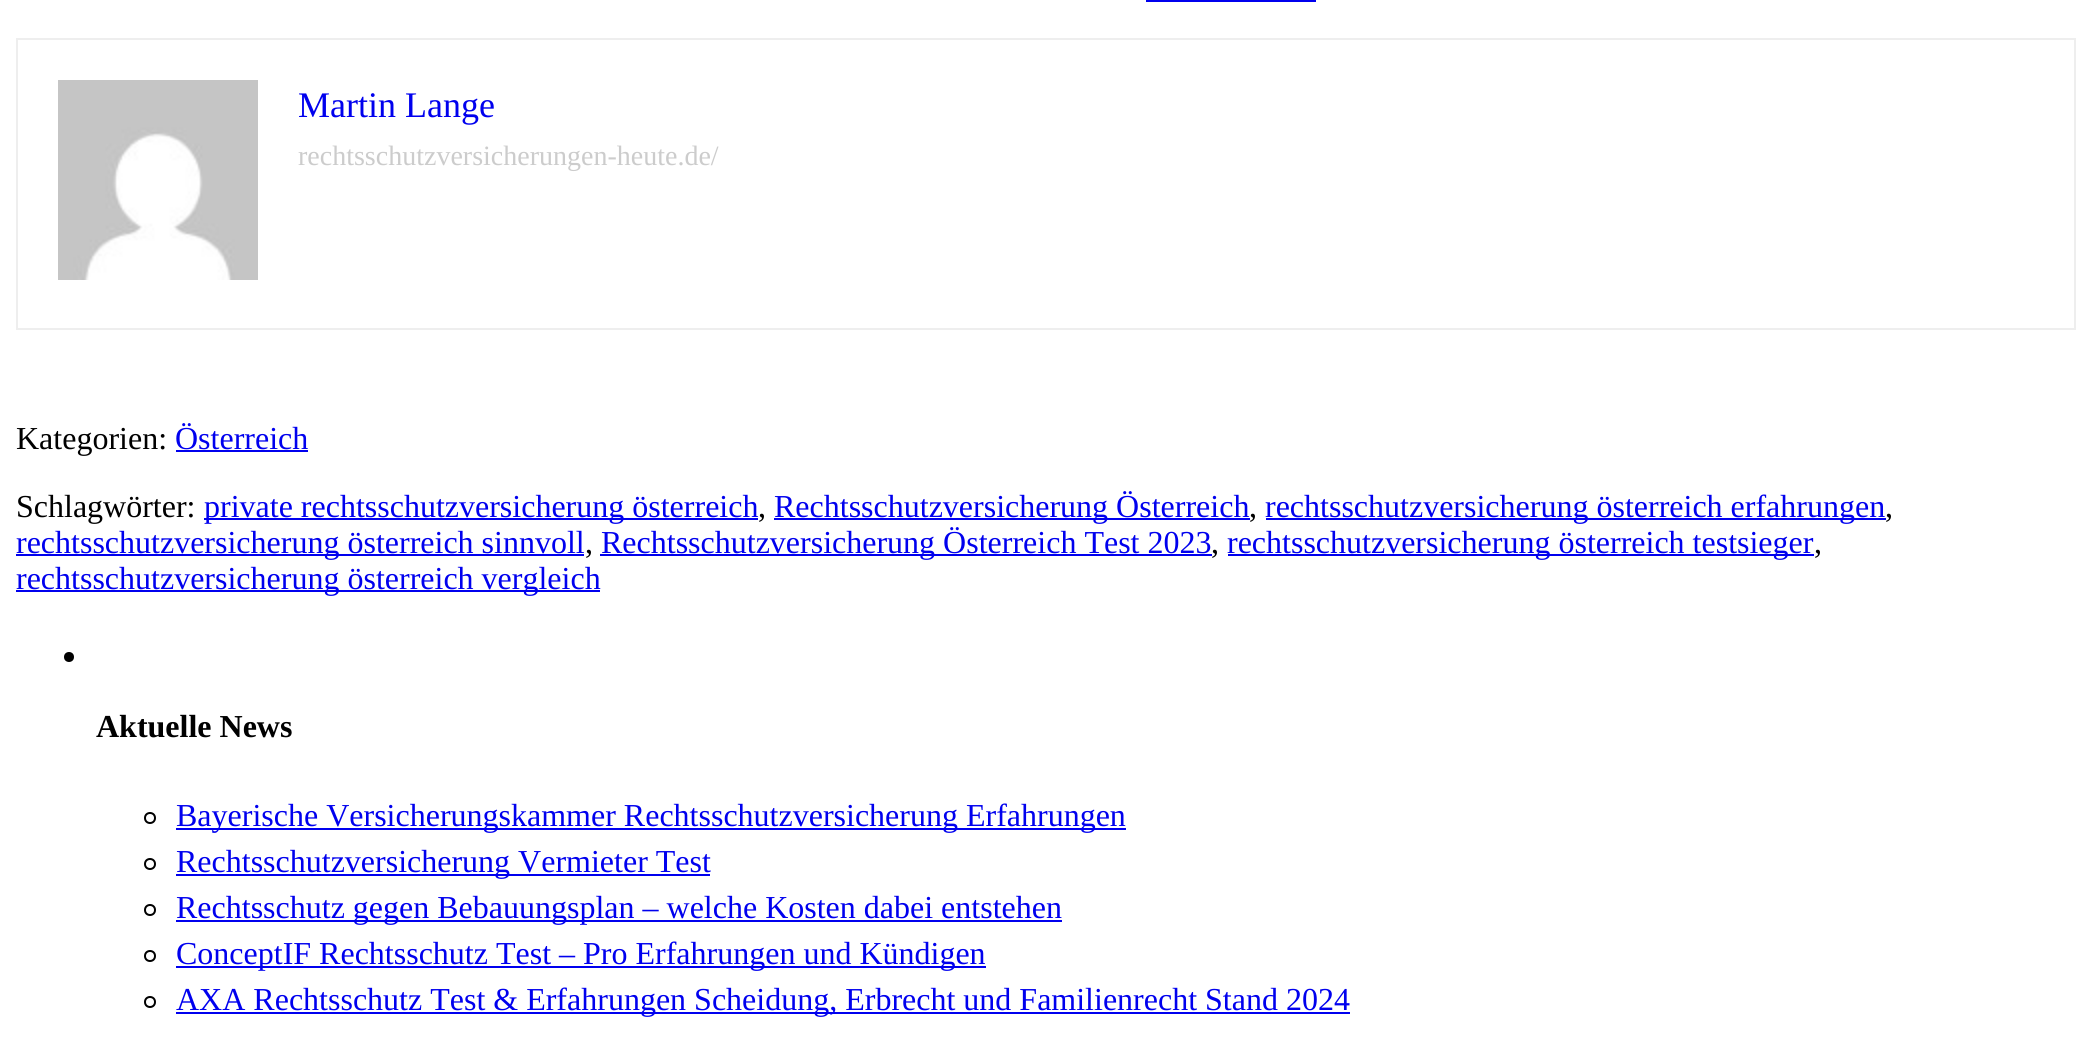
import math
import cairo

surface = cairo.ImageSurface(cairo.FORMAT_RGB24, 2091, 1043)
c = cairo.Context(surface)
options = cairo.FontOptions()
options.set_hint_metrics(cairo.HINT_METRICS_OFF)
options.set_hint_style(cairo.HINT_STYLE_NONE)
c.set_font_options(options)
c.set_miter_limit(4)
def C(code):
 c.set_source_rgb(*(v / 255 for v in bytes.fromhex(code[-6:])))
def F(family, size, italic, bold):
 c.select_font_face(family, cairo.FONT_SLANT_ITALIC if italic else cairo.FONT_SLANT_NORMAL, cairo.FONT_WEIGHT_BOLD if bold else cairo.FONT_WEIGHT_NORMAL)
 c.set_font_size(size)
def T(x, y, s):
 c.move_to(x, y)
 c.show_text(s)
def R(x, y, w, h):
 c.rectangle(x, y, w, h)
 c.fill()
def I(path, x, y, w, h):
 c.save()
 c.set_source_surface(cairo.ImageSurface.create_from_png(path), x, y)
 c.rectangle(x, y, w, h)
 c.fill()
 c.restore()
C('ffffff')
c.paint()
C('0000ee')
R(1146,0,170,2)
c.rectangle(17,39,2058,290)
C('eeeeee')
c.stroke()
I('1.png',58,80,200,200)
F('Liberation Serif',36,0,0)
C('0000ee')
T(298,117,'Martin Lange')
F('Liberation Serif',28,0,0)
C('cccccc')
T(298,165,'rechtsschutzversicherungen-heute.de/')
F('Liberation Serif',32,0,0)
C('000000')
T(16,449,'Kategorien:')
C('0000ee')
T(175,449,'Österreich')
R(176,450,132,2)
C('000000')
T(16,517,'Schlagwörter:')
C('0000ee')
R(204,518,554,2)
T(204,517,'private rechtsschutzversicherung österreich')
C('000000')
T(758,517,',')
C('0000ee')
R(774,518,476,2)
T(774,517,'Rechtsschutzversicherung Österreich')
C('000000')
T(1249,517,',')
C('0000ee')
R(1266,518,620,2)
T(1265,517,'rechtsschutzversicherung österreich erfahrungen')
C('000000')
T(1885,517,',')
C('0000ee')
R(16,554,568,2)
T(16,553,'rechtsschutzversicherung österreich sinnvoll')
C('000000')
T(585,553,',')
C('0000ee')
R(600,554,612,2)
T(601,553,'Rechtsschutzversicherung Österreich Test 2023')
C('000000')
T(1211,553,',')
C('0000ee')
R(1228,554,586,2)
T(1227,553,'rechtsschutzversicherung österreich testsieger')
C('000000')
T(1814,553,',')
C('0000ee')
R(16,590,584,2)
T(16,589,'rechtsschutzversicherung österreich vergleich')
C('000000')
c.new_path()
c.arc(69,657,5,0,2 * math.pi)
c.fill()
F('Liberation Serif',32,0,1)
T(96,737,'Aktuelle News')
c.new_path()
c.arc(150,818,5,0,2 * math.pi)
c.stroke()
C('0000ee')
R(176,828,950,2)
F('Liberation Serif',32,0,0)
T(176,826,'Bayerische Versicherungskammer Rechtsschutzversicherung Erfahrungen')
c.new_path()
c.arc(150,864,5,0,2 * math.pi)
C('000000')
c.stroke()
C('0000ee')
R(176,874,534,2)
T(176,872,'Rechtsschutzversicherung Vermieter Test')
c.new_path()
c.arc(150,910,5,0,2 * math.pi)
C('000000')
c.stroke()
C('0000ee')
R(176,920,886,2)
T(176,918,'Rechtsschutz gegen Bebauungsplan – welche Kosten dabei entstehen')
c.new_path()
c.arc(150,956,5,0,2 * math.pi)
C('000000')
c.stroke()
C('0000ee')
R(176,966,810,2)
T(176,964,'ConceptIF Rechtsschutz Test – Pro Erfahrungen und Kündigen')
c.new_path()
c.arc(150,1002,5,0,2 * math.pi)
C('000000')
c.stroke()
C('0000ee')
R(176,1012,1174,2)
T(176,1010,'AXA Rechtsschutz Test & Erfahrungen Scheidung, Erbrecht und Familienrecht Stand 2024')
surface.write_to_png('o.png')
